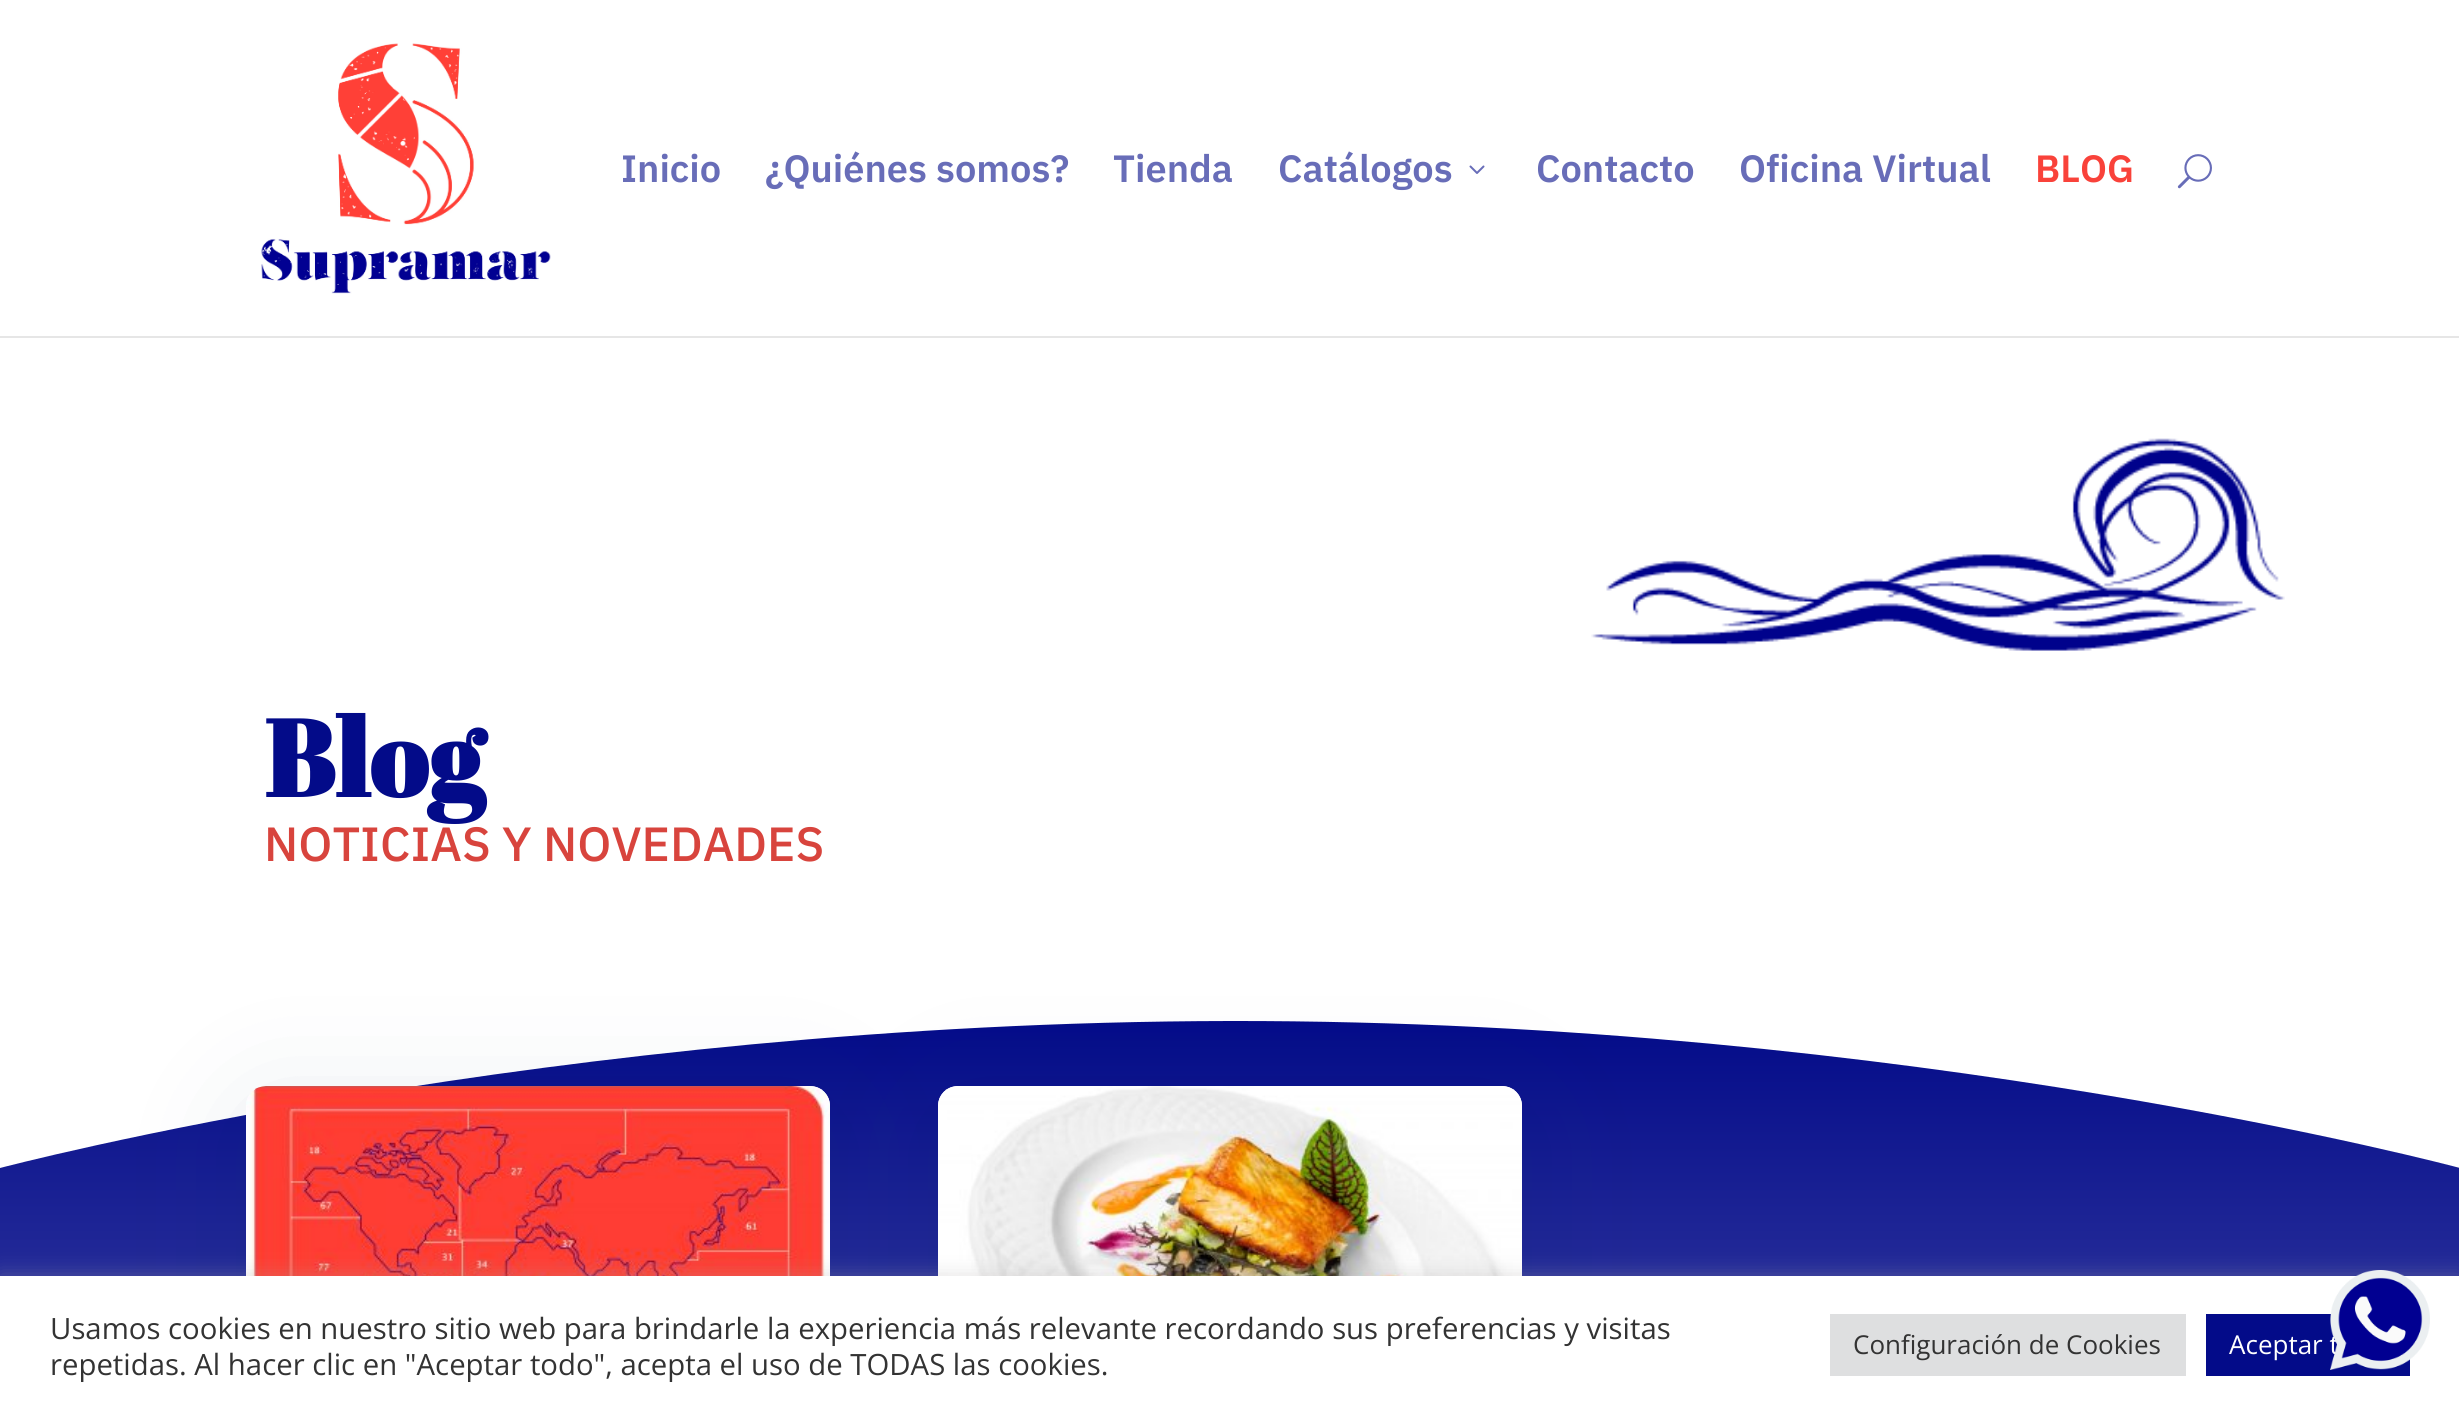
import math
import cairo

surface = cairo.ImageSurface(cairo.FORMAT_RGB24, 2459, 1413)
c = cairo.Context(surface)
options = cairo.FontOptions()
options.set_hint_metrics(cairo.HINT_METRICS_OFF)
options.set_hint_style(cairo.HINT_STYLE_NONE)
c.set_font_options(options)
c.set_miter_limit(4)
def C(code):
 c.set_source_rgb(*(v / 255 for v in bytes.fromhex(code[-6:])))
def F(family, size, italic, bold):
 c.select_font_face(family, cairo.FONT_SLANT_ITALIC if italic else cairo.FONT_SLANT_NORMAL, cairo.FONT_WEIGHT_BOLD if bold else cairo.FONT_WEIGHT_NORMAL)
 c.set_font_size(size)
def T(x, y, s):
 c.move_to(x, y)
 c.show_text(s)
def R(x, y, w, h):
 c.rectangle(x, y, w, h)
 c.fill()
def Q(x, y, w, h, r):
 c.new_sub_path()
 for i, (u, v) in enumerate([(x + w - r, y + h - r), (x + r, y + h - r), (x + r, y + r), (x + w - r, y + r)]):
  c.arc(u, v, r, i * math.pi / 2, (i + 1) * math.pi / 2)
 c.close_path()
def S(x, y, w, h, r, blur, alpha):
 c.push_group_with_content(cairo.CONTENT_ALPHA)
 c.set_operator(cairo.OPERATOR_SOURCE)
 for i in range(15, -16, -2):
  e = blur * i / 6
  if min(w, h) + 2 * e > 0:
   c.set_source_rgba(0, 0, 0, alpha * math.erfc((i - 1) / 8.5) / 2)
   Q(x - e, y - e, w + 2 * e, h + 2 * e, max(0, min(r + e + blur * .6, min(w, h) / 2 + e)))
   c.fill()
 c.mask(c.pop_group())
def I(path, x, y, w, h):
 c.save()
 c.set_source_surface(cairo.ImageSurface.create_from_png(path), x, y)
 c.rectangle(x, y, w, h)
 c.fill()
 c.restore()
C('ffffff')
c.paint()
C('e6e6e6')
R(0,336,2459,2)
I('1.png',261,43,290,251)
F('IBM Plex Sans SemiBold',38,0,0)
C('686db8')
T(621,182,'Inicio')
T(765,182,'¿Quiénes somos?')
T(1113,182,'Tienda')
T(1278,182,'Catálogos')
I('2.png',1469,165,16,9)
T(1536,182,'Contacto')
T(1739,182,'Oficina Virtual')
C('f9423a')
T(2035,182,'BLOG')
I('3.png',2177,154,35,35)
I('4.png',1591,438,694,213)
F('Abril Fatface',108,0,1)
C('030b89')
T(264,797,'Blog')
F('IBM Plex Sans Medium',48,0,0)
C('d8443d')
T(264,861,'NOTICIAS Y NOVEDADES')
gradient = cairo.LinearGradient(1230,1020,1230,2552)
gradient.add_color_stop_rgba(0,0.012,0.043,0.537,1)
gradient.add_color_stop_rgba(1,0.765,0.769,0.882,1)
c.set_source(gradient)
R(0,1021,2459,255)
C('ffffff')
c.new_path()
c.move_to(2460,1020)
c.line_to(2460,1168)
c.curve_to(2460,1168,1909,1020,1230,1021)
c.curve_to(551,1022,0,1168,0,1168)
c.line_to(0,1020)
c.close_path()
c.fill()
C('01215c')
S(246,1106,584,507,20,60,.1)
C('ffffff')
Q(246,1086,584,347,20)
c.fill()
C('01215c')
S(938,1106,584,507,20,60,.1)
I('5.png',246,1086,584,190)
C('ffffff')
Q(938,1086,584,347,20)
c.fill()
I('6.png',938,1086,584,190)
C('acabab')
S(0,1274,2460,138,0,10,.3)
C('ffffff')
R(0,1276,2459,137)
F('Open Sans',29.33,0,0)
C('333333')
T(50,1339,'Usamos cookies en nuestro sitio web para brindarle la experiencia más relevante recordando sus preferencias y visitas')
T(50,1375,'repetidas. Al hacer clic en "Aceptar todo", acepta el uso de TODAS las cookies.')
C('dedfe0')
R(1830,1314,356,62)
F('Open Sans',26,0,0)
C('333333')
T(1853,1354,'Configuración de Cookies')
C('030b89')
R(2206,1314,204,62)
C('ffffff')
T(2229,1354,'Aceptar t')
I('7.png',2330,1270,100,100)
surface.write_to_png('o.png')
